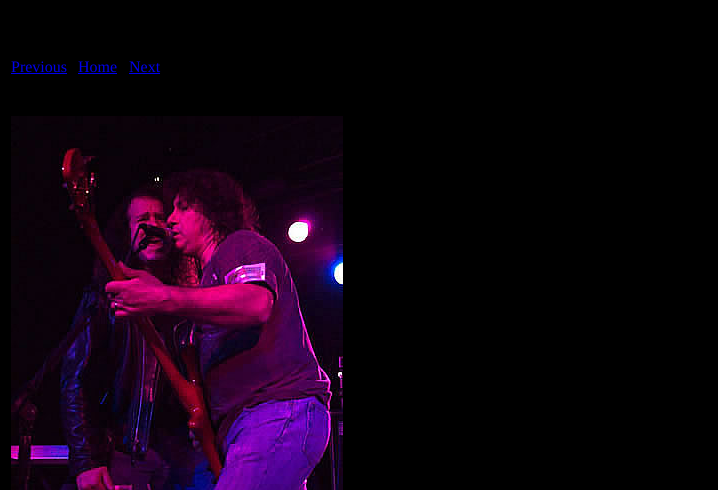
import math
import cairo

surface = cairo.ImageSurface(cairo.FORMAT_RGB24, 718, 490)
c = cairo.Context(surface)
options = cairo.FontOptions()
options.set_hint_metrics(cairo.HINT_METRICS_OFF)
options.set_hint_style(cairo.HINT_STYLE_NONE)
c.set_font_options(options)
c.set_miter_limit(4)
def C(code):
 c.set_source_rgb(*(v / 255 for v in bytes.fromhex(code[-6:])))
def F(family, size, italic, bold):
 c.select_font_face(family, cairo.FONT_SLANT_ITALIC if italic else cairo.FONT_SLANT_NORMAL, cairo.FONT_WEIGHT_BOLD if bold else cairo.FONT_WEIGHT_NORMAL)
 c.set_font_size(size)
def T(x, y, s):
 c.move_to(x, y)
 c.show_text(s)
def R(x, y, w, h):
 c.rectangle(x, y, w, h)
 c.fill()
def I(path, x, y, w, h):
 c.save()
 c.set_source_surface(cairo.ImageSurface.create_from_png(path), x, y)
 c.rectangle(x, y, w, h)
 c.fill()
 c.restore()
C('000000')
c.paint()
F('Liberation Serif',16,0,0)
C('0000ee')
T(11,72,'Previous')
R(11,73,56,1)
T(78,72,'Home')
R(78,73,39,1)
T(129,72,'Next')
R(129,73,31,1)
I('1.png',11,116,332,374)
surface.write_to_png('o.png')
